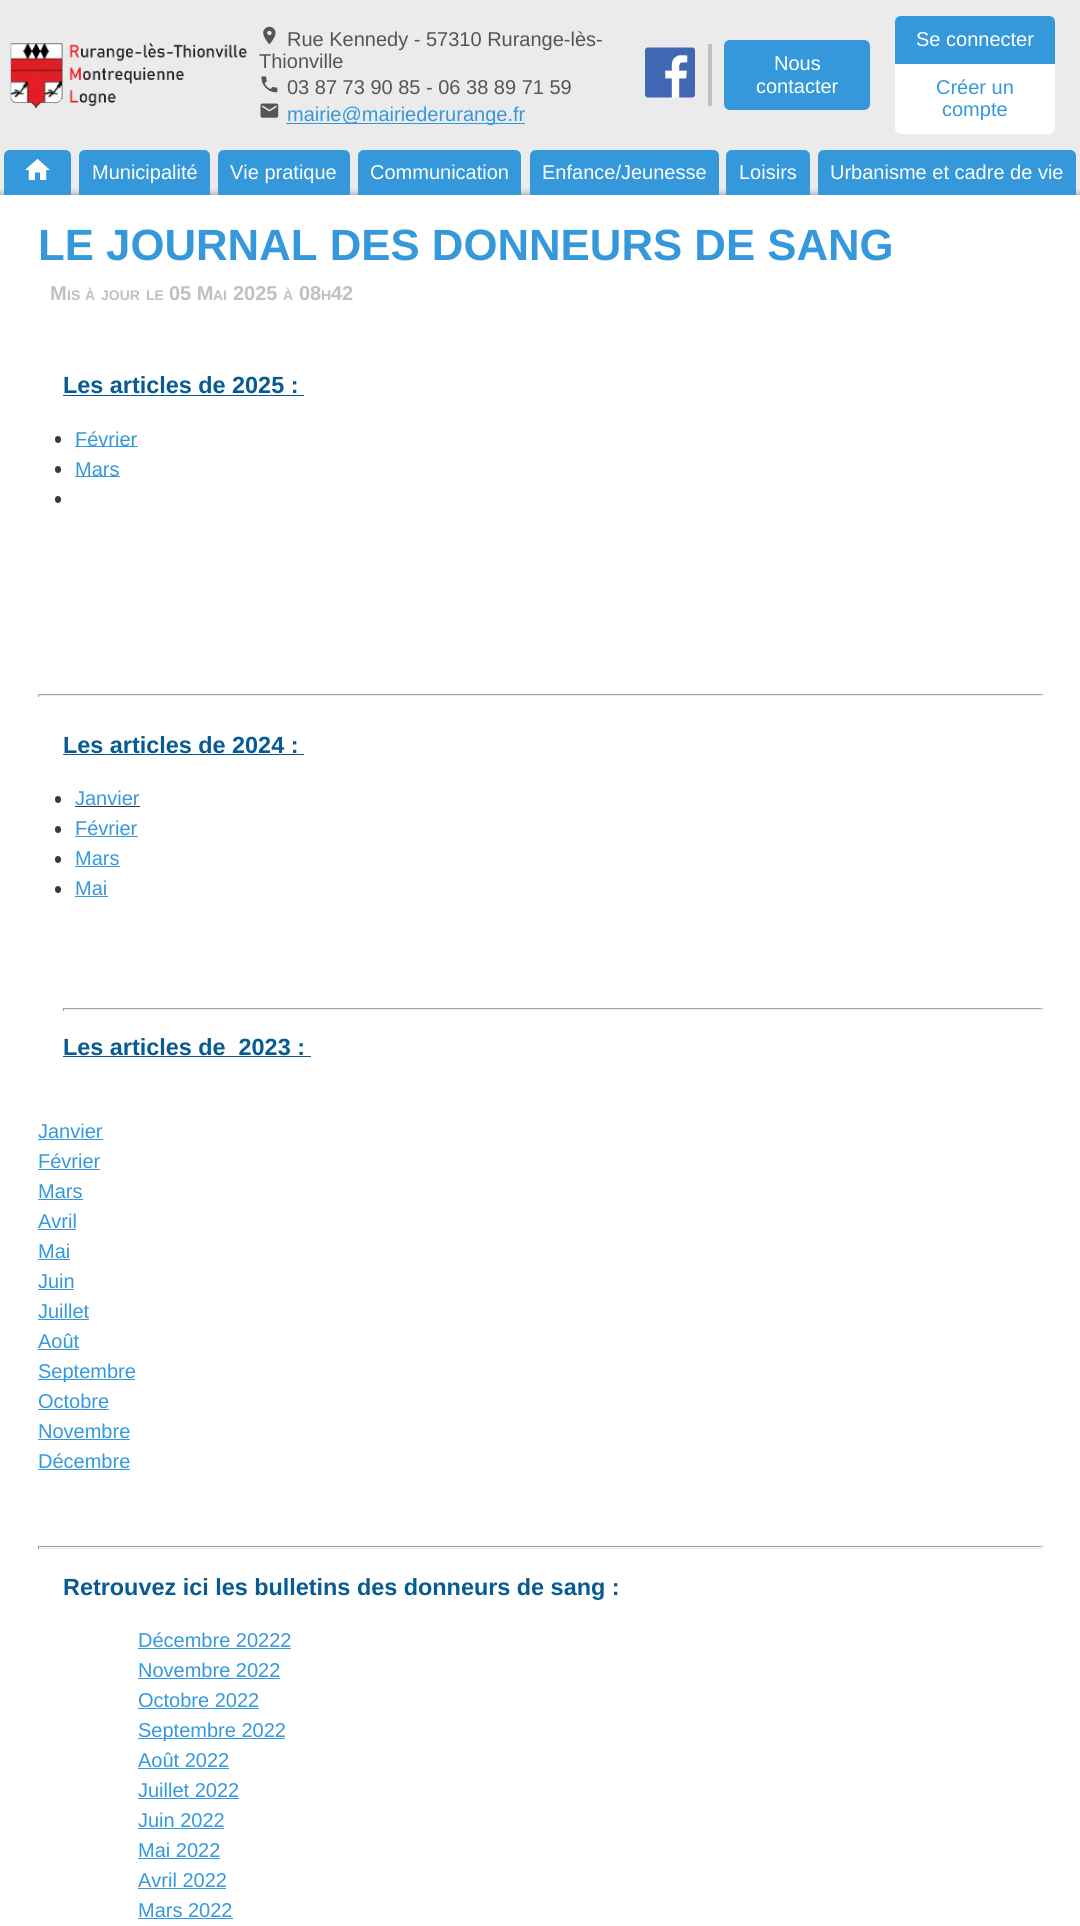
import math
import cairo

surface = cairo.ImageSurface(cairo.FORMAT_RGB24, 1080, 1926)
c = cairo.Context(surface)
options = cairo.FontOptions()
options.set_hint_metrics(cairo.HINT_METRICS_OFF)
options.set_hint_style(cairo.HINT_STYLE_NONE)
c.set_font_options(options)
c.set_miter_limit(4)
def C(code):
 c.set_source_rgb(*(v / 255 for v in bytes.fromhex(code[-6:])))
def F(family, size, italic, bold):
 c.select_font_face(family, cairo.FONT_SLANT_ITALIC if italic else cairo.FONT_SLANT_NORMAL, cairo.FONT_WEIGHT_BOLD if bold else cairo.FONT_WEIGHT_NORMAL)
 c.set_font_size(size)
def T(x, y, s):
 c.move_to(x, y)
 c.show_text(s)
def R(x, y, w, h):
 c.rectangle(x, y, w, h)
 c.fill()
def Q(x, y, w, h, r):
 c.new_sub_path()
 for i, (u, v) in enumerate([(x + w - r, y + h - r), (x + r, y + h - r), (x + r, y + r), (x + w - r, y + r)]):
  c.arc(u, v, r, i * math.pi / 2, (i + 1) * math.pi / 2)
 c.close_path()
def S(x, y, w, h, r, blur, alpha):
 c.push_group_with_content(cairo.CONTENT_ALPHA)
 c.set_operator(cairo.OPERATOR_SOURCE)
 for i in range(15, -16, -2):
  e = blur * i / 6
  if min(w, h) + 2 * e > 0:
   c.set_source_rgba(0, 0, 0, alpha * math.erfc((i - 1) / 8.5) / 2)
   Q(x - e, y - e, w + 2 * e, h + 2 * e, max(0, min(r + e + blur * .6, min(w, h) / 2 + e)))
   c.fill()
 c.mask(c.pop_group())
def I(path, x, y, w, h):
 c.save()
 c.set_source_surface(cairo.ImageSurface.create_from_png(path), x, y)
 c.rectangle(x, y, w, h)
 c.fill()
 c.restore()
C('ffffff')
c.paint()
C('ebebeb')
R(0,0,1080,195)
I('1.png',10,42,237,66)
I('2.png',263,26,13,19)
F('Liberation Sans',20,0,0)
C('555555')
T(287,46,'Rue Kennedy - 57310 Rurange-lès-')
T(259,68,'Thionville')
I('3.png',261,76,17,17)
T(287,94,'03 87 73 90 85 - 06 38 89 71 59')
I('4.png',260,103,19,15)
C('3498db')
R(286,123,239,1)
T(287,121,'mairie@mairiederurange.fr')
I('5.png',645,47,50,51)
C('c0c0c0')
R(708,44,4,62)
C('3498db')
Q(724,40,146,70,6)
c.fill()
C('ffffff')
T(774,70,'Nous')
T(756,93,'contacter')
C('3498db')
c.new_path()
c.move_to(901,16)
c.line_to(1049,16)
c.curve_to(1052.5,16,1055,18.5,1055,22)
c.line_to(1055,64)
c.line_to(895,64)
c.line_to(895,22)
c.curve_to(895,18.5,897.5,16,901,16)
c.close_path()
c.fill()
C('ffffff')
T(916,46,'Se connecter')
c.new_path()
c.move_to(895,64)
c.line_to(1055,64)
c.line_to(1055,128)
c.curve_to(1055,131.5,1052.5,134,1049,134)
c.line_to(901,134)
c.curve_to(897.5,134,895,131.5,895,128)
c.close_path()
c.fill()
C('3498db')
T(936,94,'Créer un')
T(942,116,'compte')
c.save()
c.rectangle(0,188,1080,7)
c.clip()
C('000000')
S(0,195,1080,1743,0,4,.42)
c.restore()
c.new_path()
c.move_to(10,150)
c.line_to(65,150)
c.curve_to(68.5,150,71,152.5,71,156)
c.line_to(71,195)
c.line_to(4,195)
c.line_to(4,156)
c.curve_to(4,152.5,6.5,150,10,150)
c.close_path()
c.fill()
I('6.png',25,158,25,22)
c.new_path()
c.move_to(85,150)
c.line_to(204,150)
c.curve_to(207.5,150,210,152.5,210,156)
c.line_to(210,195)
c.line_to(79,195)
c.line_to(79,156)
c.curve_to(79,152.5,81.5,150,85,150)
c.close_path()
c.fill()
C('ffffff')
T(92,179,'Municipalité')
C('3498db')
c.new_path()
c.move_to(224,150)
c.line_to(344,150)
c.curve_to(347.5,150,350,152.5,350,156)
c.line_to(350,195)
c.line_to(218,195)
c.line_to(218,156)
c.curve_to(218,152.5,220.5,150,224,150)
c.close_path()
c.fill()
C('ffffff')
T(230,179,'Vie pratique')
C('3498db')
c.new_path()
c.move_to(364,150)
c.line_to(515,150)
c.curve_to(518.5,150,521,152.5,521,156)
c.line_to(521,195)
c.line_to(358,195)
c.line_to(358,156)
c.curve_to(358,152.5,360.5,150,364,150)
c.close_path()
c.fill()
C('ffffff')
T(370,179,'Communication')
C('3498db')
c.new_path()
c.move_to(536,150)
c.line_to(713,150)
c.curve_to(716.5,150,719,152.5,719,156)
c.line_to(719,195)
c.line_to(530,195)
c.line_to(530,156)
c.curve_to(530,152.5,532.5,150,536,150)
c.close_path()
c.fill()
C('ffffff')
T(542,179,'Enfance/Jeunesse')
C('3498db')
c.new_path()
c.move_to(732,150)
c.line_to(804,150)
c.curve_to(807.5,150,810,152.5,810,156)
c.line_to(810,195)
c.line_to(726,195)
c.line_to(726,156)
c.curve_to(726,152.5,728.5,150,732,150)
c.close_path()
c.fill()
C('ffffff')
T(739,179,'Loisirs')
C('3498db')
c.new_path()
c.move_to(824,150)
c.line_to(1070,150)
c.curve_to(1073.5,150,1076,152.5,1076,156)
c.line_to(1076,195)
c.line_to(818,195)
c.line_to(818,156)
c.curve_to(818,152.5,820.5,150,824,150)
c.close_path()
c.fill()
C('ffffff')
T(830,179,'Urbanisme et cadre de vie')
F('Liberation Sans',43.75,0,1)
C('3498db')
T(38,260,'LE JOURNAL DES DONNEURS DE SANG')
F('Liberation Sans',20,0,1)
C('c0c0c0')
T(50,300,'M')
F('Liberation Sans',14,0,1)
T(67,300,'IS')
T(85,300,'À')
T(101,300,'JOUR')
T(146,300,'LE')
F('Liberation Sans',20,0,1)
T(169,300,'05 M')
F('Liberation Sans',14,0,1)
T(213,300,'AI')
F('Liberation Sans',20,0,1)
T(233,300,'2025')
F('Liberation Sans',14,0,1)
T(283,300,'À')
F('Liberation Sans',20,0,1)
T(299,300,'08')
F('Liberation Sans',14,0,1)
T(321,300,'H')
F('Liberation Sans',20,0,1)
T(331,300,'42')
F('Liberation Sans',23.4,0,1)
C('075b92')
T(63,393,'Les articles de 2025 :')
R(63,395,241,1)
C('383838')
Q(55,436,6,7,3)
c.fill()
C('3498db')
R(75,446,63,1)
F('Liberation Sans',20,0,0)
T(75,446,'Février')
C('383838')
Q(55,466,6,7,3)
c.fill()
C('3498db')
R(75,476,45,1)
T(75,476,'Mars')
C('383838')
Q(55,496,6,7,3)
c.fill()
C('9f9f9f')
R(38,694,1005,1)
C('eeeeee')
R(1041,694,1,3)
R(38,695,1005,1)
C('9f9f9f')
R(38,694,1,3)
F('Liberation Sans',23.4,0,1)
C('075b92')
T(63,753,'Les articles de 2024 :')
R(63,754,241,1)
C('383838')
Q(55,796,6,7,3)
c.fill()
F('Liberation Sans',20,0,0)
C('3498db')
T(75,805,'Janvier')
C('383838')
R(75,806,65,1)
Q(55,826,6,7,3)
c.fill()
C('3498db')
T(75,835,'Février')
R(75,836,63,1)
C('383838')
Q(55,856,6,7,3)
c.fill()
C('3498db')
T(75,865,'Mars')
R(75,866,45,1)
C('383838')
Q(55,886,6,7,3)
c.fill()
C('3498db')
T(75,895,'Mai')
R(75,896,33,1)
C('9f9f9f')
R(63,1008,980,1)
C('eeeeee')
R(1041,1008,1,3)
R(63,1009,980,1)
C('9f9f9f')
R(63,1008,1,3)
F('Liberation Sans',23.4,0,1)
C('075b92')
T(63,1055,'Les articles de  2023 :')
R(63,1056,248,1)
F('Liberation Sans',20,0,0)
C('3498db')
T(38,1138,'Janvier')
R(38,1139,65,1)
T(38,1168,'Février')
R(38,1169,62,1)
T(38,1198,'Mars')
R(38,1199,45,1)
T(38,1228,'Avril')
R(38,1229,38,1)
T(38,1258,'Mai')
R(38,1259,32,1)
T(38,1288,'Juin')
R(38,1289,36,1)
T(38,1318,'Juillet')
R(38,1319,51,1)
T(38,1348,'Août')
R(38,1349,41,1)
R(38,1379,97,1)
T(38,1378,'Septembre')
T(38,1408,'Octobre')
R(38,1409,71,1)
T(38,1438,'Novembre')
R(38,1439,92,1)
T(38,1468,'Décembre')
R(38,1469,92,1)
C('9f9f9f')
R(38,1546,1005,1)
C('eeeeee')
R(1041,1546,1,3)
R(38,1548,1005,1)
C('9f9f9f')
R(38,1546,1,3)
F('Liberation Sans',23.4,0,1)
C('075b92')
T(63,1595,'Retrouvez ici les bulletins des donneurs de sang :')
F('Liberation Sans',20,0,0)
C('3498db')
T(138,1647,'Décembre 20222')
R(138,1648,153,1)
T(138,1677,'Novembre 2022')
R(138,1678,142,1)
T(138,1707,'Octobre 2022')
R(138,1708,121,1)
R(138,1738,147,1)
T(138,1737,'Septembre 2022')
T(138,1767,'Août 2022')
R(138,1768,91,1)
T(138,1797,'Juillet 2022')
R(138,1798,101,1)
T(138,1827,'Juin 2022')
R(138,1828,86,1)
T(138,1857,'Mai 2022')
R(138,1858,82,1)
T(138,1887,'Avril 2022')
R(138,1888,88,1)
T(138,1917,'Mars 2022')
R(138,1918,95,1)
surface.write_to_png('o.png')
